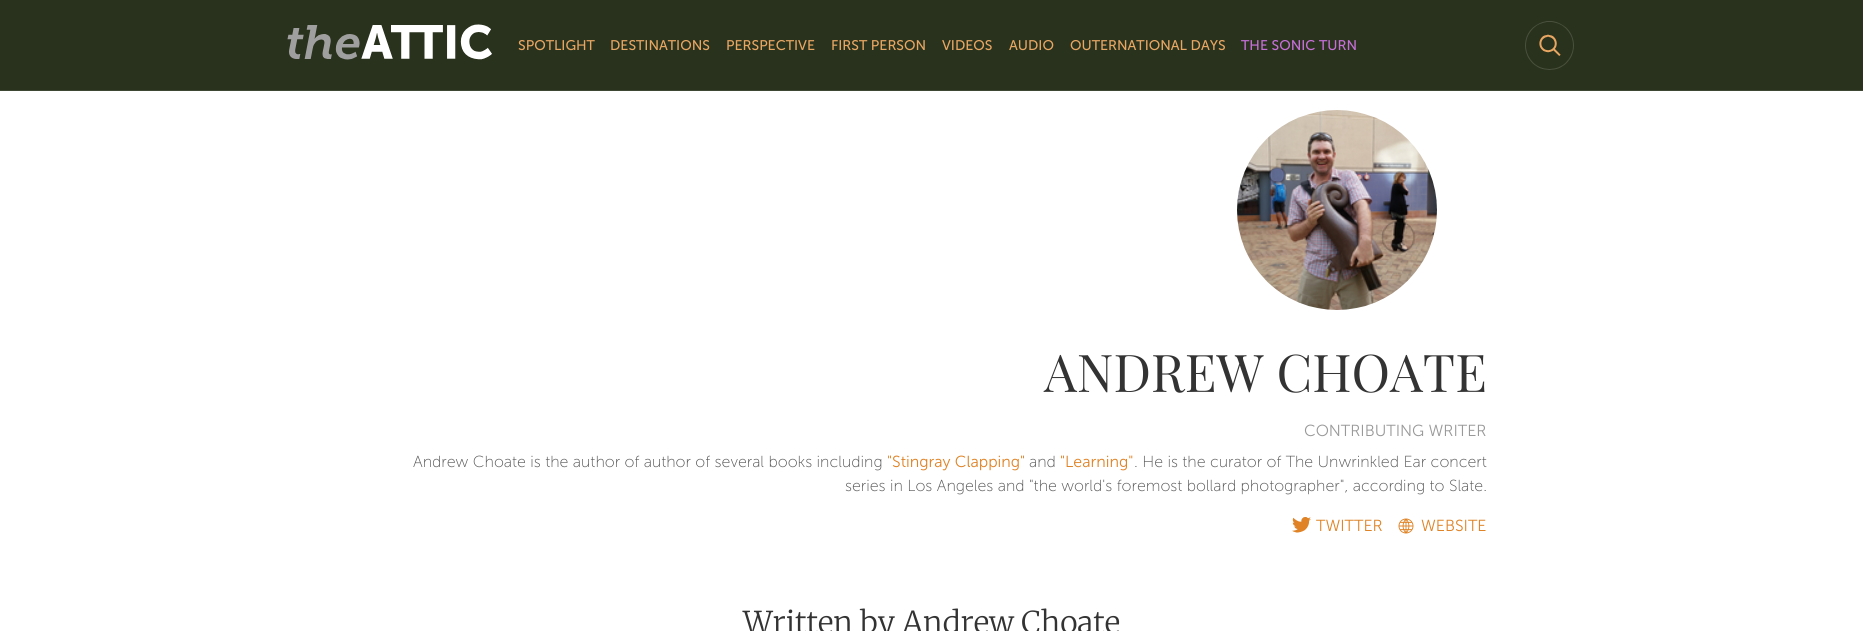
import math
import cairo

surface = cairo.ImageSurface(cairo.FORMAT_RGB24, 1863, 631)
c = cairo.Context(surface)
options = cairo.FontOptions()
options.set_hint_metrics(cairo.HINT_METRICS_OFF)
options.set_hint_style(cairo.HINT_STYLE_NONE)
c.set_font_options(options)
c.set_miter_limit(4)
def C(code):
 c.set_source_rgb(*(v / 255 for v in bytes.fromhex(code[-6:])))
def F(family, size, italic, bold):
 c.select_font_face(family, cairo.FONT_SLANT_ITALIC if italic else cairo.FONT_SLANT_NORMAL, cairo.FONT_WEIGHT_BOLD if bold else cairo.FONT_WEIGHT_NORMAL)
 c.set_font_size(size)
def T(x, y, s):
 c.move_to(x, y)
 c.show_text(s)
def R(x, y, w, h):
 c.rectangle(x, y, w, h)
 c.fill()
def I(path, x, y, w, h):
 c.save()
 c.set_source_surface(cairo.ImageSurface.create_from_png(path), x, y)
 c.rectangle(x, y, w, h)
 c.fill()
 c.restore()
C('ffffff')
c.paint()
C('29321c')
R(0,0,1863,90)
C('3e4733')
R(0,90,1863,1)
I('1.png',287,24,205,36)
F('Museo Sans',14,0,0)
C('e8a663')
T(518,50,'SPOTLIGHT')
T(610,50,'DESTINATIONS')
T(726,50,'PERSPECTIVE')
T(831,50,'FIRST PERSON')
T(942,50,'VIDEOS')
T(1009,50,'AUDIO')
T(1070,50,'OUTERNATIONAL DAYS')
C('c66fd9')
T(1241,50,'THE SONIC TURN')
I('2.png',1525,21,49,49)
I('3.png',1237,110,200,200)
F('Playfair Display',52,0,0)
C('333333')
T(1044,392,'ANDREW CHOATE')
F('Museo Sans Light',16,0,0)
C('999999')
T(1304,436,'CONTRIBUTING WRITER')
F('Museo Sans ExtraLight',16,0,0)
C('555555')
T(413,467,'Andrew Choate is the author of author of several books including')
F('Museo Sans Light',16,0,0)
C('df8326')
T(887,467,'"Stingray Clapping"')
F('Museo Sans ExtraLight',16,0,0)
C('555555')
T(1029,467,'and')
F('Museo Sans Light',16,0,0)
C('df8326')
T(1060,467,'"Learning"')
F('Museo Sans ExtraLight',16,0,0)
C('555555')
T(1134,467,'. He is the curator of The Unwrinkled Ear concert')
T(845,491,'series in Los Angeles and "the world\'s foremost bollard photographer", according to Slate.')
I('4.png',1292,517,19,16)
F('Museo Sans Light',16,0,0)
C('df8326')
T(1316,531,'TWITTER')
I('5.png',1398,518,16,16)
T(1421,531,'WEBSITE')
F('Merriweather Light',30,0,0)
C('333333')
T(743,633,'Written by Andrew Choate')
surface.write_to_png('o.png')
